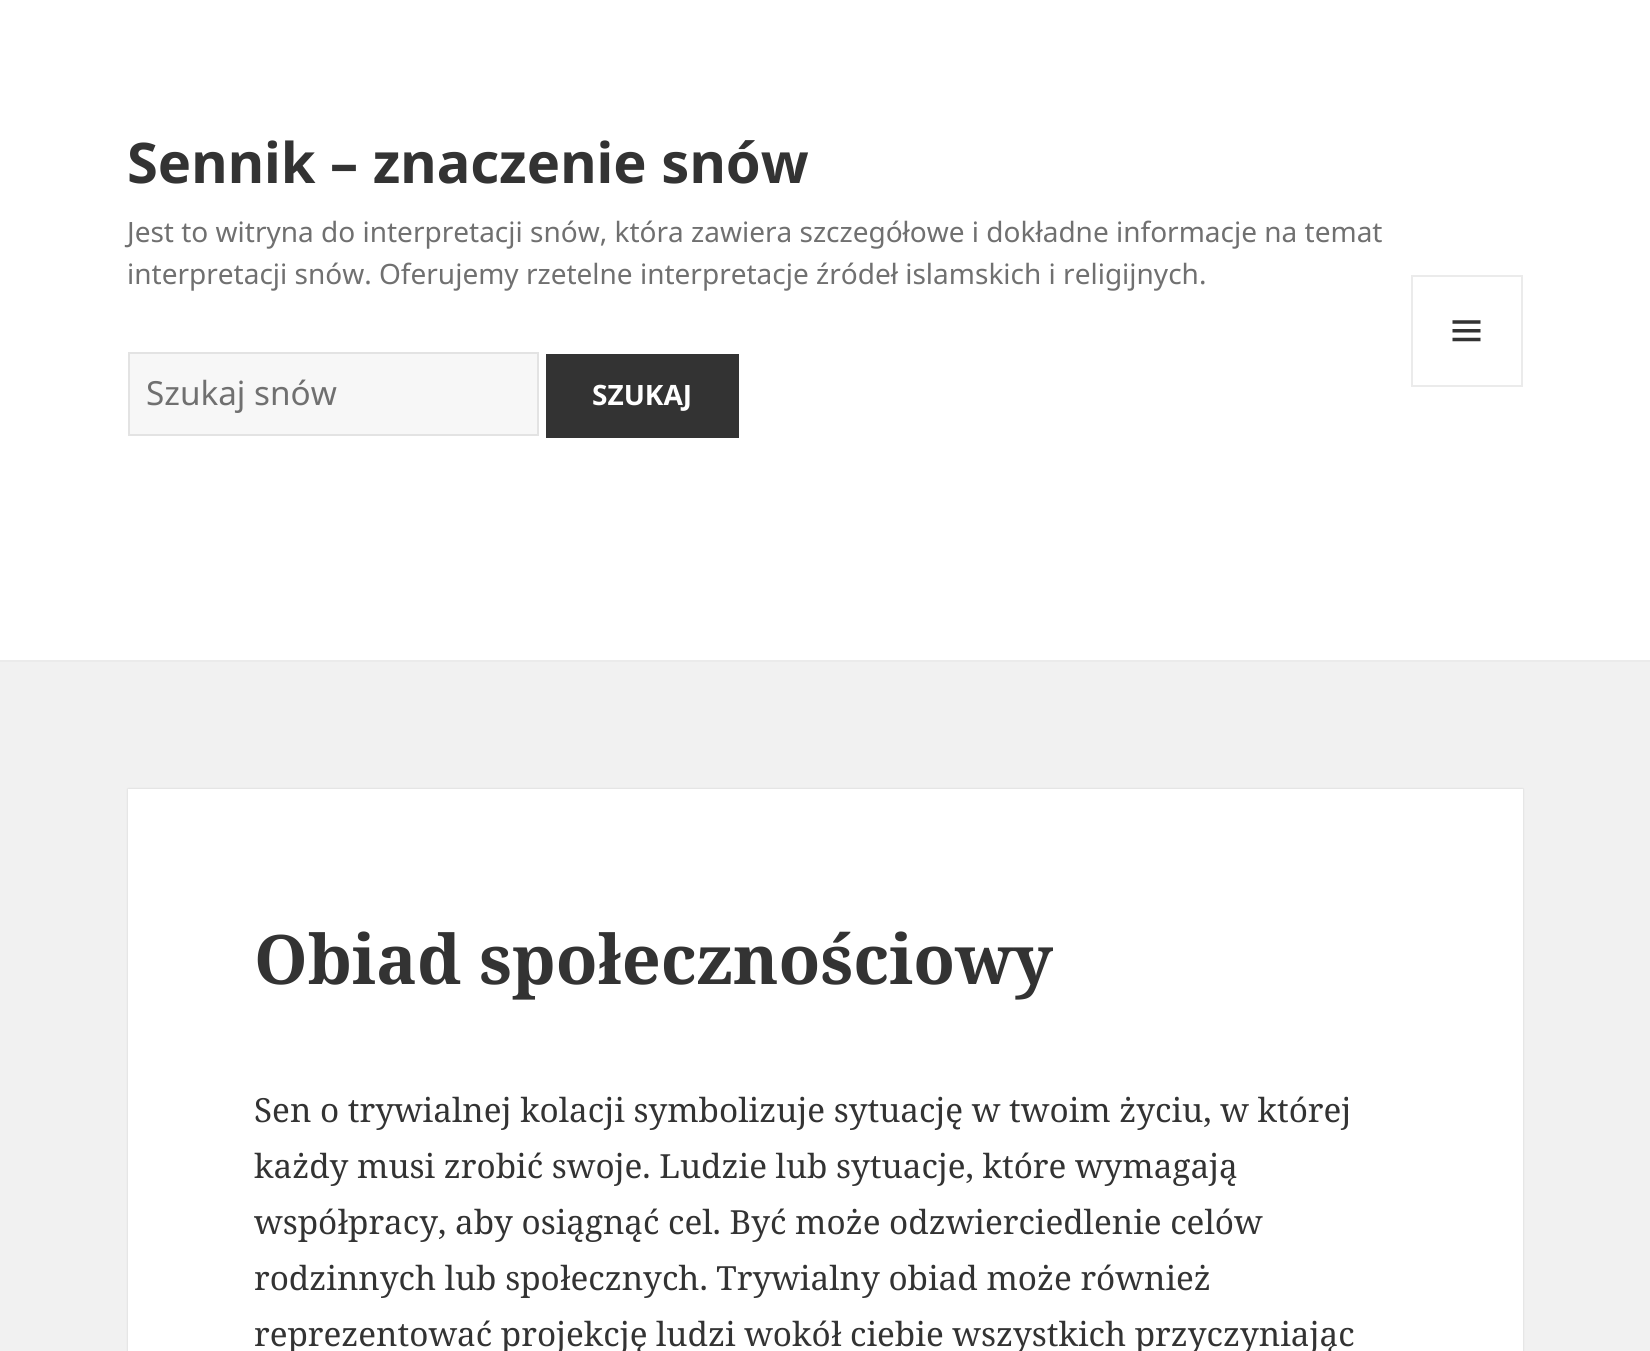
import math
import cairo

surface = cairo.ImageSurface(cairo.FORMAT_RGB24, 1650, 1351)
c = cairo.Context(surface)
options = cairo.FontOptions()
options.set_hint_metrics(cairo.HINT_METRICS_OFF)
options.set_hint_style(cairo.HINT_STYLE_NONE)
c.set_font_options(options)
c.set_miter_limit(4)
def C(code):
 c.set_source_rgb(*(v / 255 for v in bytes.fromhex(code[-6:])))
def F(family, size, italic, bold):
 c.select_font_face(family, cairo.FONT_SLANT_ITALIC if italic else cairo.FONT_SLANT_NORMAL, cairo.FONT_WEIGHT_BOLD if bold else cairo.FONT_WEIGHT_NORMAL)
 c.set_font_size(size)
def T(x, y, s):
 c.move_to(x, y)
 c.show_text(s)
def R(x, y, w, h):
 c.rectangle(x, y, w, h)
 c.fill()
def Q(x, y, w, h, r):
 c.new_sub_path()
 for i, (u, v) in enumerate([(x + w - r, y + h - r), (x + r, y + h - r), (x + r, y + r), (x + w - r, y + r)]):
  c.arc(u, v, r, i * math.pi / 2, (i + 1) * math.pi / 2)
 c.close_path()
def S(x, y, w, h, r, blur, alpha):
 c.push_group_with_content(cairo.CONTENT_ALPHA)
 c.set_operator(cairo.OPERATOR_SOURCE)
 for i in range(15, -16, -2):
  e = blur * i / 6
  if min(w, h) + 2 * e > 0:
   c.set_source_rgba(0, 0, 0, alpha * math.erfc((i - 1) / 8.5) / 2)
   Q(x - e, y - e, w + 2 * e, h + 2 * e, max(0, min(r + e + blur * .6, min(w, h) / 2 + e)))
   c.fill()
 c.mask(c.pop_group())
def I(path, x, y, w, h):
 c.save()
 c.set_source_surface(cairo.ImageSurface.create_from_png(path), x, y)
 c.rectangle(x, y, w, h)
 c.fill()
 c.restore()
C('f1f1f1')
c.paint()
C('ffffff')
R(0,0,1650,660)
C('ebebeb')
R(0,660,1650,2)
F('Noto Sans',56,0,1)
C('333333')
T(127,183,'Sennik – znaczenie snów')
F('Noto Sans',28,0,0)
C('707070')
T(127,242,'Jest to witryna do interpretacji snów, która zawiera szczegółowe i dokładne informacje na temat')
T(127,284,'interpretacji snów. Oferujemy rzetelne interpretacje źródeł islamskich i religijnych.')
c.rectangle(1412,276,110,110)
C('ebebeb')
c.stroke()
I('1.png',1452,320,29,22)
C('f7f7f7')
c.rectangle(129,353,409,82)
c.fill_preserve()
C('e3e3e3')
c.stroke()
F('Noto Sans',33.25,0,0)
C('707070')
T(146,405,'Szukaj snów')
C('333333')
R(546,354,193,84)
F('Noto Sans',28,0,1)
C('ffffff')
T(592,405,'SZUKAJ')
C('000000')
S(128,789,1395,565,0,1,.15)
C('ffffff')
R(128,789,1395,562)
F('Noto Serif',68.25,0,1)
C('333333')
T(254,984,'Obiad społecznościowy')
F('Noto Serif',33.25,0,0)
T(254,1122,'Sen o trywialnej kolacji symbolizuje sytuację w twoim życiu, w której')
T(254,1178,'każdy musi zrobić swoje. Ludzie lub sytuacje, które wymagają')
T(254,1234,'współpracy, aby osiągnąć cel. Być może odzwierciedlenie celów')
T(254,1290,'rodzinnych lub społecznych. Trywialny obiad może również')
T(254,1346,'reprezentować projekcję ludzi wokół ciebie wszystkich przyczyniając')
surface.write_to_png('o.png')
